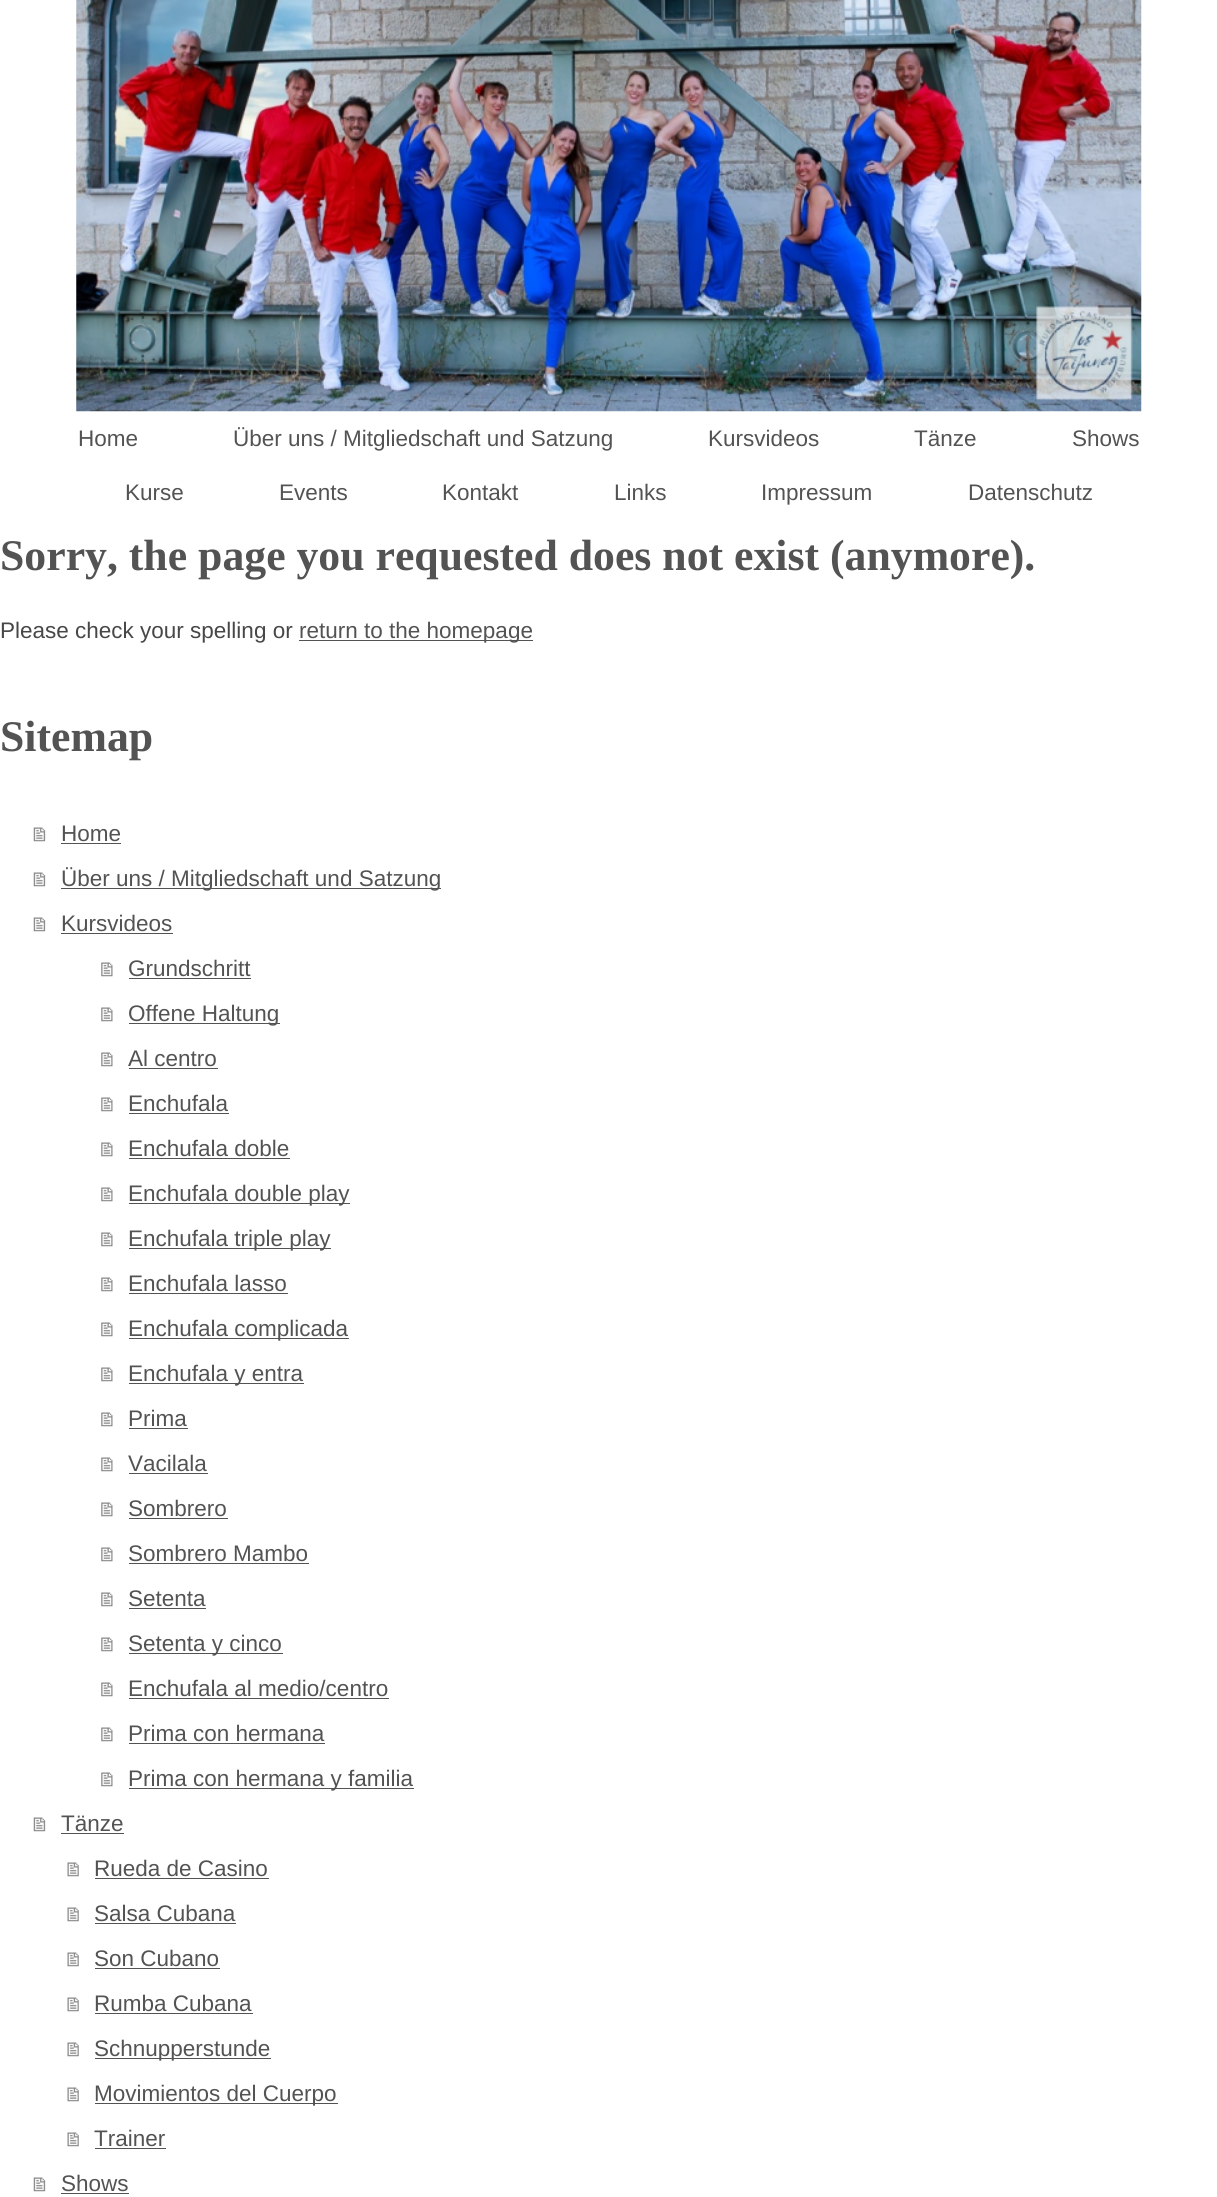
import math
import cairo

surface = cairo.ImageSurface(cairo.FORMAT_RGB24, 1217, 2197)
c = cairo.Context(surface)
options = cairo.FontOptions()
options.set_hint_metrics(cairo.HINT_METRICS_OFF)
options.set_hint_style(cairo.HINT_STYLE_NONE)
c.set_font_options(options)
c.set_miter_limit(4)
def C(code):
 c.set_source_rgb(*(v / 255 for v in bytes.fromhex(code[-6:])))
def F(family, size, italic, bold):
 c.select_font_face(family, cairo.FONT_SLANT_ITALIC if italic else cairo.FONT_SLANT_NORMAL, cairo.FONT_WEIGHT_BOLD if bold else cairo.FONT_WEIGHT_NORMAL)
 c.set_font_size(size)
def T(x, y, s):
 c.move_to(x, y)
 c.show_text(s)
def R(x, y, w, h):
 c.rectangle(x, y, w, h)
 c.fill()
def I(path, x, y, w, h):
 c.save()
 c.set_source_surface(cairo.ImageSurface.create_from_png(path), x, y)
 c.rectangle(x, y, w, h)
 c.fill()
 c.restore()
C('ffffff')
c.paint()
I('1.png',76,0,1066,412)
F('Liberation Sans',22.5,0,0)
C('535353')
T(78,446,'Home')
T(233,446,'Über uns / Mitgliedschaft und Satzung')
T(708,446,'Kursvideos')
T(914,446,'Tänze')
T(1072,446,'Shows')
T(125,500,'Kurse')
T(279,500,'Events')
T(442,500,'Kontakt')
T(614,500,'Links')
T(761,500,'Impressum')
T(968,500,'Datenschutz')
F('Liberation Serif',43.75,0,1)
T(0,570,'Sorry, the page you requested does not exist (anymore).')
F('Liberation Sans',22.5,0,0)
C('474747')
T(0,638,'Please check your spelling or')
C('535353')
R(299,640,234,1)
T(299,638,'return to the homepage')
F('Liberation Serif',43.75,0,1)
T(0,751,'Sitemap')
I('2.png',33,827,13,15)
F('Liberation Sans',22.5,0,0)
T(61,841,'Home')
R(61,843,60,1)
I('2.png',33,872,13,15)
R(61,888,380,1)
T(61,886,'Über uns / Mitgliedschaft und Satzung')
I('2.png',33,917,13,15)
T(61,931,'Kursvideos')
R(61,933,112,1)
I('3.png',101,962,12,15)
T(128,976,'Grundschritt')
R(129,978,122,1)
I('3.png',101,1007,12,15)
R(129,1023,151,1)
T(128,1021,'Offene Haltung')
I('3.png',101,1052,12,15)
T(128,1066,'Al centro')
R(129,1068,89,1)
I('3.png',101,1097,12,15)
T(128,1111,'Enchufala')
R(129,1113,100,1)
I('3.png',101,1142,12,15)
T(128,1156,'Enchufala doble')
R(129,1158,161,1)
I('3.png',101,1187,12,15)
R(129,1203,221,1)
T(128,1201,'Enchufala double play')
I('3.png',101,1232,12,15)
R(129,1248,202,1)
T(128,1246,'Enchufala triple play')
I('3.png',101,1277,12,15)
T(128,1291,'Enchufala lasso')
R(129,1293,159,1)
I('3.png',101,1322,12,15)
R(129,1338,220,1)
T(128,1336,'Enchufala complicada')
I('3.png',101,1367,12,15)
R(129,1383,175,1)
T(128,1381,'Enchufala y entra')
I('3.png',101,1412,12,15)
T(128,1426,'Prima')
R(129,1428,59,1)
I('3.png',101,1457,12,15)
T(128,1471,'Vacilala')
R(129,1473,79,1)
I('3.png',101,1502,12,15)
T(128,1516,'Sombrero')
R(129,1518,99,1)
I('3.png',101,1547,12,15)
T(128,1561,'Sombrero Mambo')
R(129,1563,180,1)
I('3.png',101,1592,12,15)
T(128,1606,'Setenta')
R(129,1608,77,1)
I('3.png',101,1637,12,15)
R(129,1653,154,1)
T(128,1651,'Setenta y cinco')
I('3.png',101,1682,12,15)
T(128,1696,'Enchufala al medio/centro')
R(129,1698,260,1)
I('3.png',101,1727,12,15)
T(128,1741,'Prima con hermana')
R(129,1743,196,1)
I('3.png',101,1772,12,15)
R(129,1788,285,1)
T(128,1786,'Prima con hermana y familia')
I('2.png',33,1817,13,15)
T(61,1831,'Tänze')
R(61,1833,63,1)
I('4.png',67,1862,12,15)
T(94,1876,'Rueda de Casino')
R(95,1878,174,1)
I('4.png',67,1907,12,15)
T(94,1921,'Salsa Cubana')
R(95,1923,141,1)
I('4.png',67,1952,12,15)
T(94,1966,'Son Cubano')
R(95,1968,125,1)
I('4.png',67,1997,12,15)
T(94,2011,'Rumba Cubana')
R(95,2013,158,1)
I('4.png',67,2042,12,15)
R(95,2058,176,1)
T(94,2056,'Schnupperstunde')
I('4.png',67,2087,12,15)
R(95,2103,243,1)
T(94,2101,'Movimientos del Cuerpo')
I('4.png',67,2132,12,15)
T(94,2146,'Trainer')
R(95,2148,71,1)
I('2.png',33,2177,13,15)
T(61,2191,'Shows')
R(61,2193,68,1)
surface.write_to_png('o.png')
